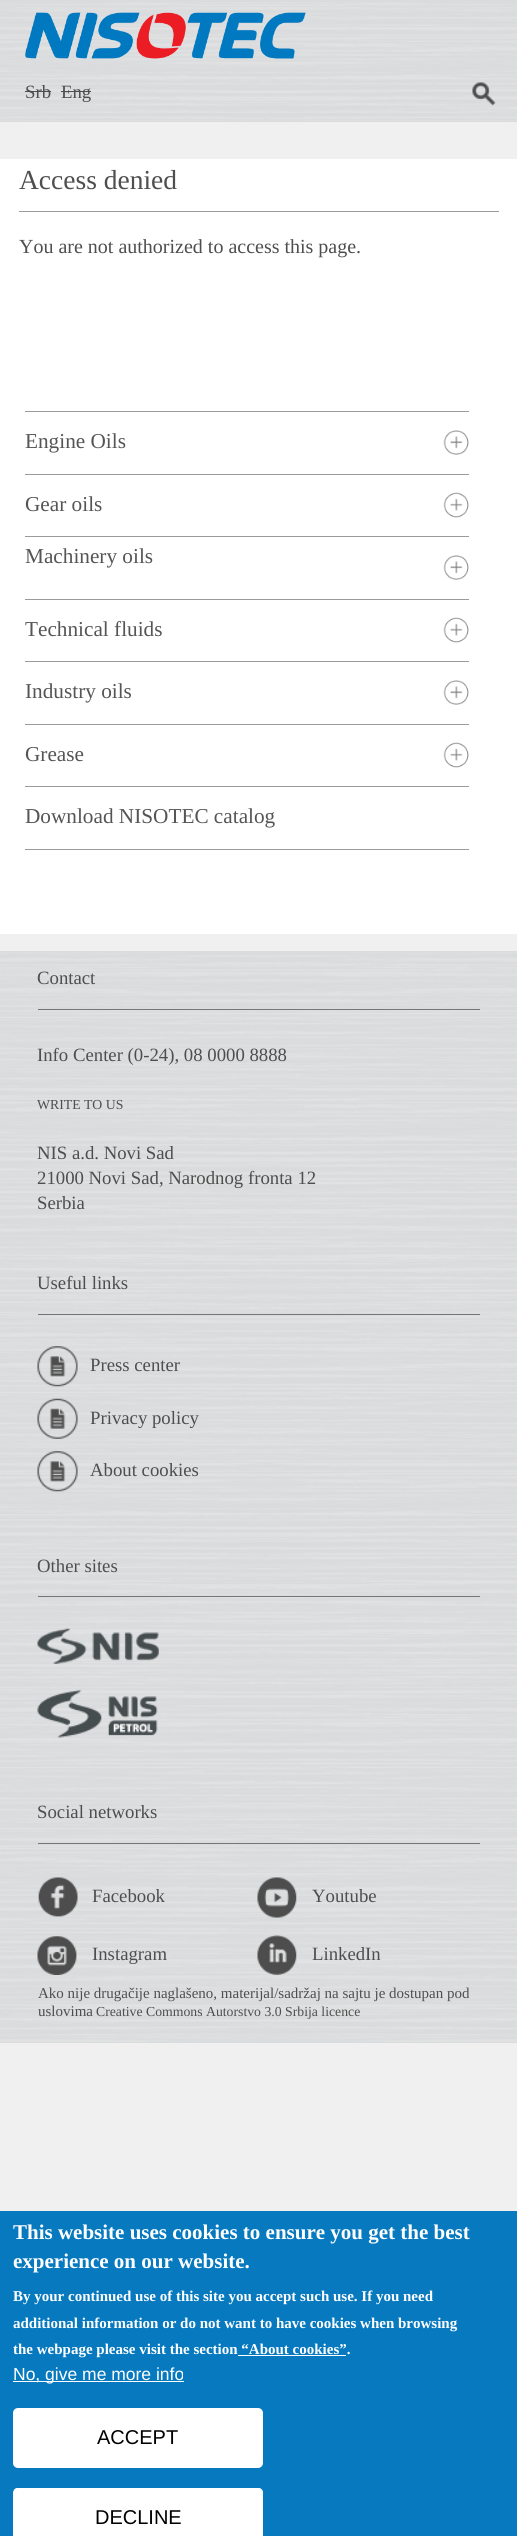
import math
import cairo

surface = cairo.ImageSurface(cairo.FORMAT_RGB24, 517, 2536)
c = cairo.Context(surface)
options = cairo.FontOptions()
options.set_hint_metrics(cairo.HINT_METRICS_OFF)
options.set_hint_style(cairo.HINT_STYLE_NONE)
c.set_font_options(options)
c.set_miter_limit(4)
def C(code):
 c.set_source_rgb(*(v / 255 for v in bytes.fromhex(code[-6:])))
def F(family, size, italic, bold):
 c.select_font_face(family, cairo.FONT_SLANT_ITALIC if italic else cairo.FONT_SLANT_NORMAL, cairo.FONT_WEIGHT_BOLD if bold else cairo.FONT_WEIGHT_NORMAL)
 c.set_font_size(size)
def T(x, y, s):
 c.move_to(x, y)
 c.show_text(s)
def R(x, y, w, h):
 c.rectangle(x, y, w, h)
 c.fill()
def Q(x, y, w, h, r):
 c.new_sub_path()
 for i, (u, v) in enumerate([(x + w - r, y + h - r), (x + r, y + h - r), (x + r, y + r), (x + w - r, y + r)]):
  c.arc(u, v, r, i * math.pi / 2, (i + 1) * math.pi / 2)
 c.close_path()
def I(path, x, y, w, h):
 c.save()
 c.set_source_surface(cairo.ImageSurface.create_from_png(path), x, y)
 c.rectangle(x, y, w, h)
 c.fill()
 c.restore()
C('f0f0f0')
c.paint()
C('dadbdc')
R(0,0,517,122)
I('1.png',0,2,517,119)
I('2.png',25,12,281,47)
F('Liberation Serif',18.75,0,0)
C('4e4e4e')
T(25,98,'Srb')
R(25,91,26,1)
T(61,98,'Eng')
R(61,91,30,1)
I('3.png',472,82,24,24)
C('ffffff')
R(0,159,517,775)
C('9b9b9d')
R(19,211,480,1)
F('Liberation Serif',27.5,0,0)
C('4e4e4e')
T(19,189,'Access denied')
F('Liberation Serif',20,0,0)
T(19,253,'You are not authorized to access this page.')
C('9b9b9d')
R(25,849,444,1)
I('4.png',443,430,26,25)
R(25,411,444,1)
F('Liberation Serif',21.25,0,0)
C('555555')
T(25,448,'Engine Oils')
I('5.png',443,492,26,26)
C('9b9b9d')
R(25,474,444,1)
C('555555')
T(25,511,'Gear oils')
I('4.png',443,555,26,25)
C('9b9b9d')
R(25,536,444,1)
C('555555')
T(25,563,'Machinery oils')
I('5.png',443,617,26,26)
C('9b9b9d')
R(25,599,444,1)
C('555555')
T(25,636,'Technical fluids')
I('4.png',443,680,26,25)
C('9b9b9d')
R(25,661,444,1)
C('555555')
T(25,698,'Industry oils')
I('5.png',443,742,26,26)
C('9b9b9d')
R(25,724,444,1)
C('555555')
T(25,761,'Grease')
C('9b9b9d')
R(25,786,444,1)
C('555555')
T(25,823,'Download NISOTEC catalog')
C('dadbdc')
R(0,951,517,1092)
I('6.png',0,952,517,1090)
C('747577')
R(38,1009,442,1)
F('Liberation Serif',18.75,0,0)
C('4e4e4e')
T(37,984,'Contact')
T(37,1061,'Info Center (0-24), 08 0000 8888')
F('Liberation Serif',13.75,0,0)
T(37,1109,'WRITE TO US')
F('Liberation Serif',18.75,0,0)
T(37,1159,'NIS a.d. Novi Sad')
T(37,1184,'21000 Novi Sad, Narodnog fronta 12')
T(37,1209,'Serbia')
C('747577')
R(38,1314,442,1)
C('4e4e4e')
T(37,1289,'Useful links')
I('7.png',37,1346,41,41)
T(90,1371,'Press center')
I('8.png',37,1398,41,41)
T(90,1424,'Privacy policy')
I('9.png',37,1451,41,41)
T(90,1476,'About cookies')
C('747577')
R(38,1596,442,1)
C('4e4e4e')
T(37,1572,'Other sites')
I('10.png',37,1628,122,36)
I('11.png',37,1689,121,49)
C('747577')
R(38,1843,442,1)
C('4e4e4e')
T(37,1818,'Social networks')
I('12.png',38,1877,40,40)
T(92,1902,'Facebook')
I('13.png',257,1877,40,41)
T(312,1902,'Youtube')
I('14.png',37,1936,40,39)
T(92,1960,'Instagram')
I('15.png',257,1935,40,40)
T(312,1960,'LinkedIn')
F('Liberation Serif',15,0,0)
T(38,1998,'Ako nije drugačije naglašeno, materijal/sadržaj na sajtu je dostupan pod')
T(38,2016,'uslovima')
F('Liberation Serif',13.75,0,0)
T(96,2016,'Creative Commons Autorstvo 3.0 Srbija licence')
C('0779bf')
R(0,2211,517,325)
F('Liberation Serif',21,0,1)
C('ffffff')
T(13,2239,'This website uses cookies to ensure you get the best')
T(13,2268,'experience on our website.')
F('Liberation Serif',15,0,1)
T(13,2301,'By your continued use of this site you accept such use. If you need')
T(13,2328,'additional information or do not want to have cookies when browsing')
T(13,2354,'the webpage please visit the section “About cookies”.')
R(238,2355,108,1)
R(13,2381,171,1)
F('Liberation Sans',17.5,0,0)
T(13,2380,'No, give me more info')
Q(13,2408,250,60,5)
c.fill()
F('Liberation Sans',20,0,0)
C('000000')
T(97,2444,'ACCEPT')
C('ffffff')
Q(13,2488,250,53,5)
c.fill()
c.new_path()
c.move_to(18,2489)
c.line_to(258,2489)
c.curve_to(260,2489,262,2491,262,2494)
c.line_to(262,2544)
c.line_to(261,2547)
c.curve_to(262,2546,263,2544,263,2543)
c.line_to(263,2493)
c.curve_to(263,2490,261,2488,258,2488)
c.line_to(18,2488)
c.curve_to(16,2488,14,2489,14,2491)
c.curve_to(15,2490,16,2489,18,2489)
c.close_path()
c.fill()
C('000000')
T(95,2524,'DECLINE')
surface.write_to_png('o.png')
